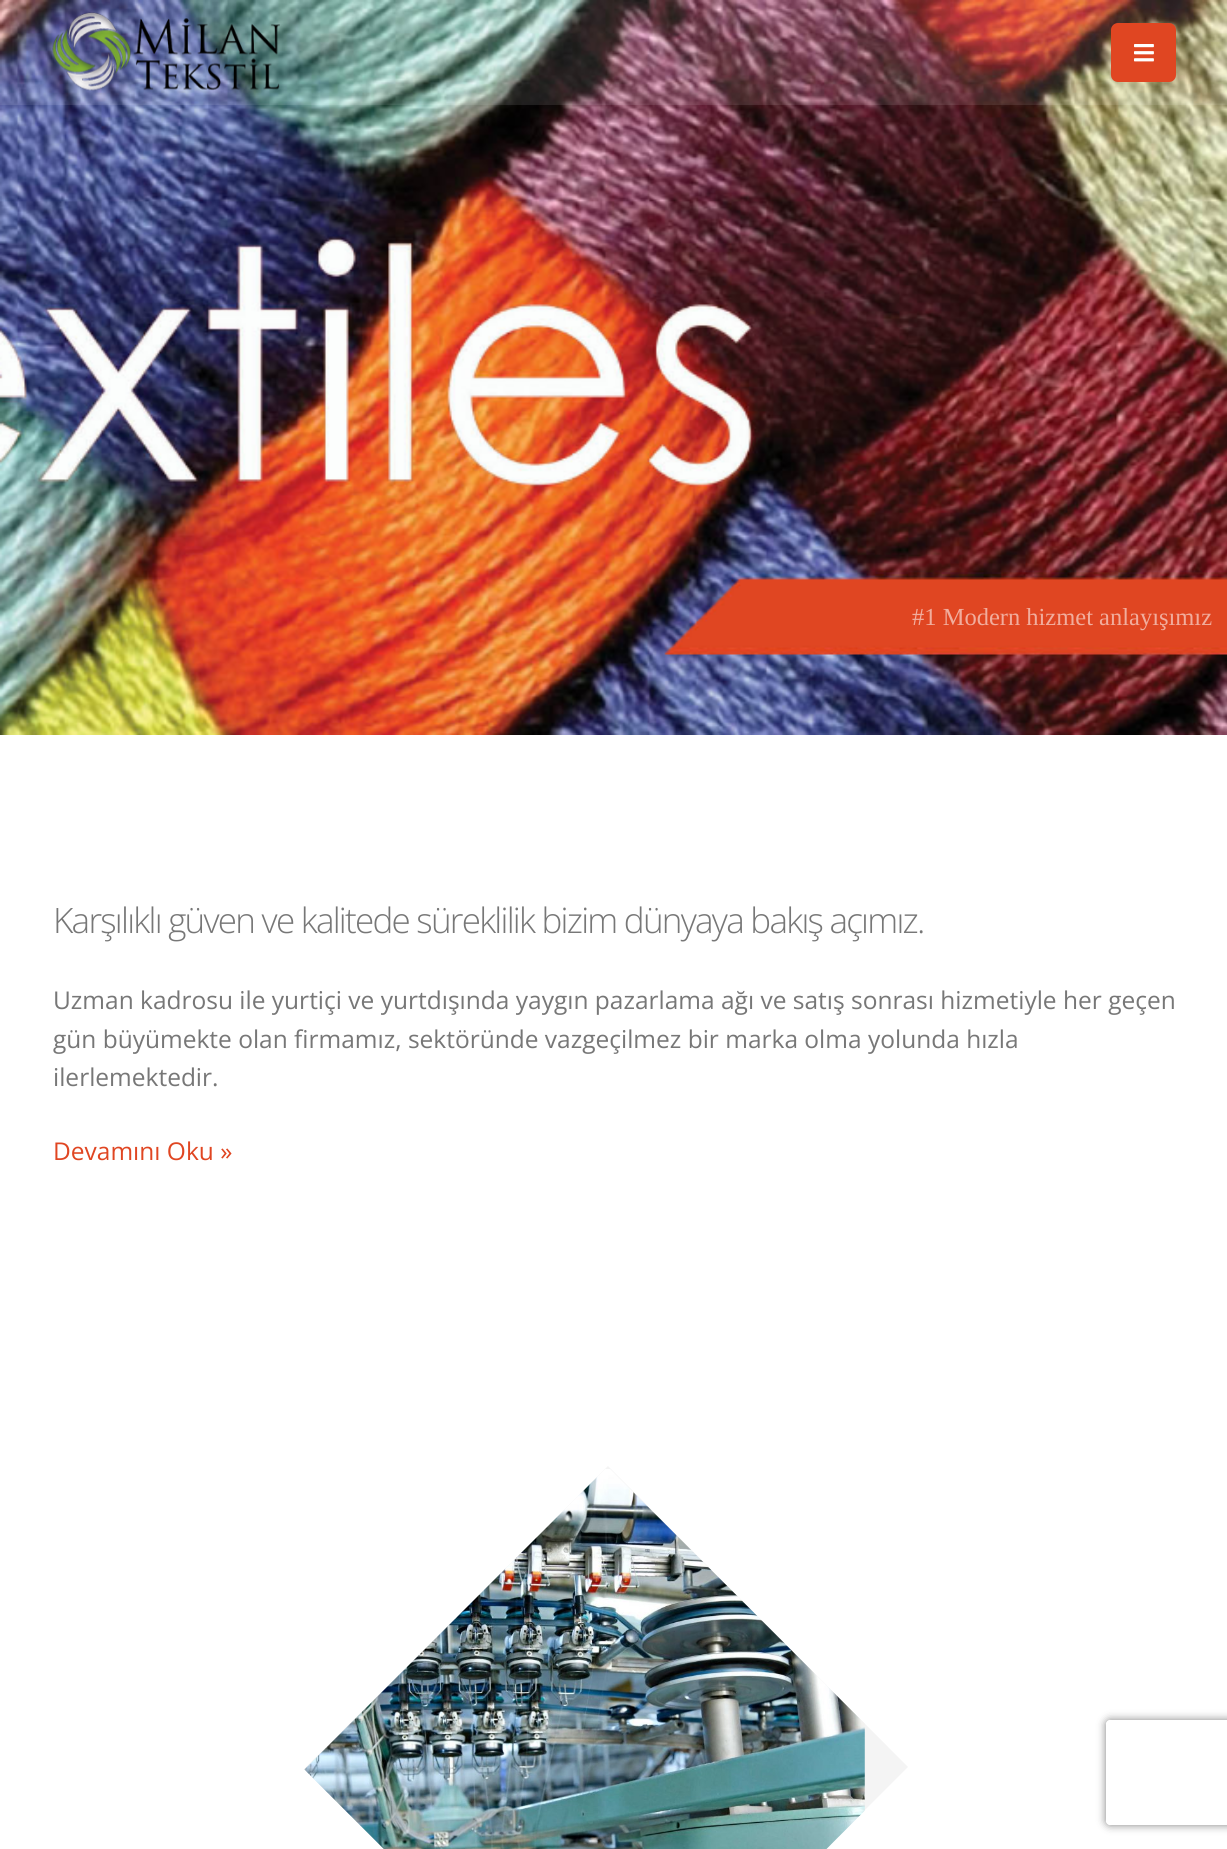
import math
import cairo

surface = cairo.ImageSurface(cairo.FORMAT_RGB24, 1227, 1849)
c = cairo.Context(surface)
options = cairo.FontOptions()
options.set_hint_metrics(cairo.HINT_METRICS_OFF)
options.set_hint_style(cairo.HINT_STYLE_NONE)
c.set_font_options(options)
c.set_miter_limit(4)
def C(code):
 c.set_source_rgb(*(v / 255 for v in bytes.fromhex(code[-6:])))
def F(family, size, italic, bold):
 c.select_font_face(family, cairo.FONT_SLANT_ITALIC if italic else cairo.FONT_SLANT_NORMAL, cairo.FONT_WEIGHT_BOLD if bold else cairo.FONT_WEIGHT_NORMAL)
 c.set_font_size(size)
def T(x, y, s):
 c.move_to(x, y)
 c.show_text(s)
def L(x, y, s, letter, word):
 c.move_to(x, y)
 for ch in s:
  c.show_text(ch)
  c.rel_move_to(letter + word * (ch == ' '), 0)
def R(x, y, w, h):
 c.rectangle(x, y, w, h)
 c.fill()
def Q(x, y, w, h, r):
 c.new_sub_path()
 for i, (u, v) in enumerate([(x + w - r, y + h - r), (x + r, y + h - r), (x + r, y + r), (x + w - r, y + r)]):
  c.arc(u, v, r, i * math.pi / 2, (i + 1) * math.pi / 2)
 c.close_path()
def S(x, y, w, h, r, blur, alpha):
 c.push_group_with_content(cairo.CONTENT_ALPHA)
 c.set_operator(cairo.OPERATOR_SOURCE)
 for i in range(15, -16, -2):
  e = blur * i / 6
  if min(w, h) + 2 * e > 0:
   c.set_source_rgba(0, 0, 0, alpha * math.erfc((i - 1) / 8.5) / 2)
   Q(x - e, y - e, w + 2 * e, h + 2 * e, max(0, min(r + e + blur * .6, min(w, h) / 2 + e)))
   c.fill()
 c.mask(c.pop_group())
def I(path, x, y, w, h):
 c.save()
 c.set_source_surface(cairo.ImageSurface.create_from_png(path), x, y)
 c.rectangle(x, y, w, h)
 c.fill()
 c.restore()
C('ffffff')
c.paint()
I('3.png',0,0,1227,735)
c.set_source_rgba(1,1,1,0.1)
R(0,0,1227,105)
I('1.png',52,12,228,79)
C('e04622')
Q(1111,23,65,59,7)
c.fill()
I('2.png',1134,44,20,18)
F('Liberation Serif',24.5,0,0)
C('f1ad9d')
T(912,625,'#1 Modern hizmet anlayışımız')
F('Open Sans Light',35,0,0)
C('777777')
L(53,933,'Karşılıklı güven ve kalitede süreklilik bizim dünyaya bakış açımız.',-1.75,0)
F('Open Sans',24.5,0,0)
T(53,1009,'Uzman kadrosu ile yurtiçi ve yurtdışında yaygın pazarlama ağı ve satış sonrası hizmetiyle her geçen')
T(53,1048,'gün büyümekte olan firmamız, sektöründe vazgeçilmez bir marka olma yolunda hızla')
T(53,1086,'ilerlemektedir.')
C('e04622')
T(53,1160,'Devamını Oku »')
C('f4f4f4')
c.new_path()
c.move_to(304,1769)
c.line_to(608,1466)
c.line_to(908,1767)
c.line_to(605,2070)
c.close_path()
c.fill()
I('4.png',304,1469,561,380)
c.save()
c.set_fill_rule(cairo.FILL_RULE_EVEN_ODD)
c.new_path()
c.move_to(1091,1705)
c.line_to(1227,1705)
c.line_to(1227,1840)
c.line_to(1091,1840)
c.close_path()
c.move_to(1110,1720)
c.line_to(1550,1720)
c.curve_to(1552,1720,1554,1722,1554,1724)
c.line_to(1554,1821)
c.curve_to(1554,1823,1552,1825,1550,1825)
c.line_to(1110,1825)
c.curve_to(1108,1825,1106,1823,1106,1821)
c.line_to(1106,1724)
c.curve_to(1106,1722,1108,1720,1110,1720)
c.close_path()
c.clip()
C('808080')
S(1106,1720,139,105,4,4.5,1)
c.restore()
surface.write_to_png('o.png')
